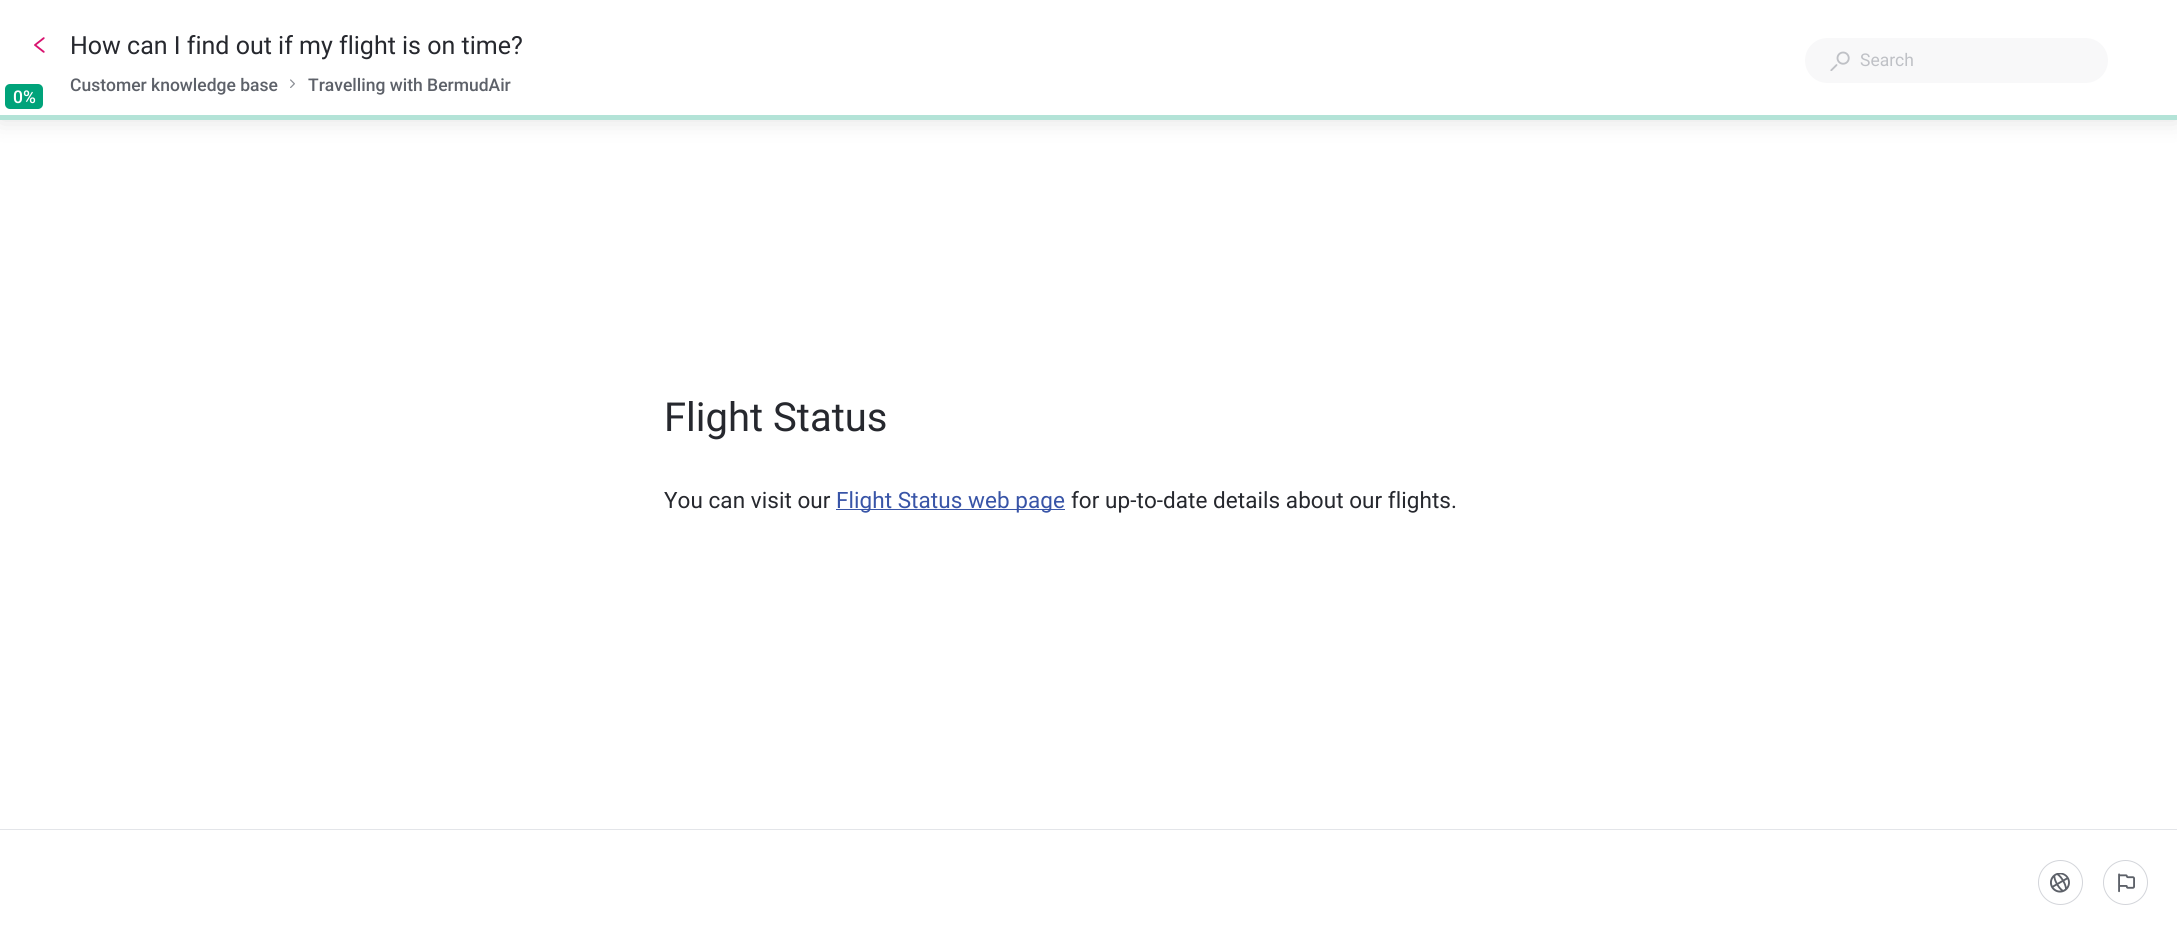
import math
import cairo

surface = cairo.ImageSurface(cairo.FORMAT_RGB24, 2177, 933)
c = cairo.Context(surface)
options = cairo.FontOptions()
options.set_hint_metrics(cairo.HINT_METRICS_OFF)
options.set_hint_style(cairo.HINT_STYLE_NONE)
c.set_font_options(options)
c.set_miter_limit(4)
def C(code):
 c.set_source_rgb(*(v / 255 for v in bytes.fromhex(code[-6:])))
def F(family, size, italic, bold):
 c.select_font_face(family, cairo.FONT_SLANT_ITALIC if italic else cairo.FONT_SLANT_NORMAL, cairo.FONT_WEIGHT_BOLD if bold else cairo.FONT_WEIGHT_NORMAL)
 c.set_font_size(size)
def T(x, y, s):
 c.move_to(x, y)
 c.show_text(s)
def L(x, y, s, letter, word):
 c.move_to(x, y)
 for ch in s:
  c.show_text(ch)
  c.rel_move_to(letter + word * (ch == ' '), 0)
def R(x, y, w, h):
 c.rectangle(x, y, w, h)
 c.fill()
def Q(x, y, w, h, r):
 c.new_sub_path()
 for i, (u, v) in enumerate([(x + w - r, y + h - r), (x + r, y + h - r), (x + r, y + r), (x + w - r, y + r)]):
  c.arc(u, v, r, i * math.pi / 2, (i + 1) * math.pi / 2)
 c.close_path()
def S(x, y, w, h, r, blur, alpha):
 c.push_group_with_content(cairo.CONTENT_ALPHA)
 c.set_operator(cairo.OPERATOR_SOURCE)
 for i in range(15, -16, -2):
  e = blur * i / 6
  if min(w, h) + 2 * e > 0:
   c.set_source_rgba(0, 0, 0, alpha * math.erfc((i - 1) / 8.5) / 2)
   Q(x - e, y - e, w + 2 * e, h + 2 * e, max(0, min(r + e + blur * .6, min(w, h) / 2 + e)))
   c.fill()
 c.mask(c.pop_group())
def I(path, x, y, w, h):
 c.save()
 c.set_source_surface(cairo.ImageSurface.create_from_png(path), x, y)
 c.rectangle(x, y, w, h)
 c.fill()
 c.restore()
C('ffffff')
c.paint()
C('000000')
S(0,0,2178,120,0,12.5,.12)
C('ffffff')
R(0,0,2177,115)
I('1.png',34,37,11,16)
F('Roboto',25,0,0)
C('26282e')
T(70,54,'How can I find out if my flight is on time?')
F('Roboto Medium',17.5,0,0)
C('5d6169')
T(70,91,'Customer knowledge base')
I('2.png',290,79,5,9)
T(308,91,'Travelling with BermudAir')
C('f8f8f9')
Q(1805,38,303,45,22.5)
c.fill()
I('3.png',1830,51,20,20)
F('Roboto',17.5,0,0)
C('bfc1c6')
T(1860,66,'Search')
C('00a37a')
Q(5,84,38,25,5)
c.fill()
F('Roboto Medium',17.5,0,0)
C('ffffff')
T(13,103,'0%')
C('b3e3d7')
R(0,115,2177,5)
F('Roboto',40,0,0)
C('26282e')
T(664,431,'Flight Status')
F('Roboto',22.5,0,0)
L(664,508,'You can visit our',.05,0)
C('3854a7')
R(836,509,229,1)
L(836,508,'Flight Status web page',.05,0)
C('26282e')
L(1071,508,'for up-to-date details about our flights.',.05,0)
C('e3e5e9')
R(0,829,2177,1)
c.new_path()
c.arc(2060.5,882.5,22,0,2 * math.pi)
C('d3d5da')
c.set_line_width(1)
c.stroke()
I('4.png',2050,873,20,20)
c.arc(2125.5,882.5,22,0,2 * math.pi)
c.stroke()
I('5.png',2118,873,17,20)
surface.write_to_png('o.png')
